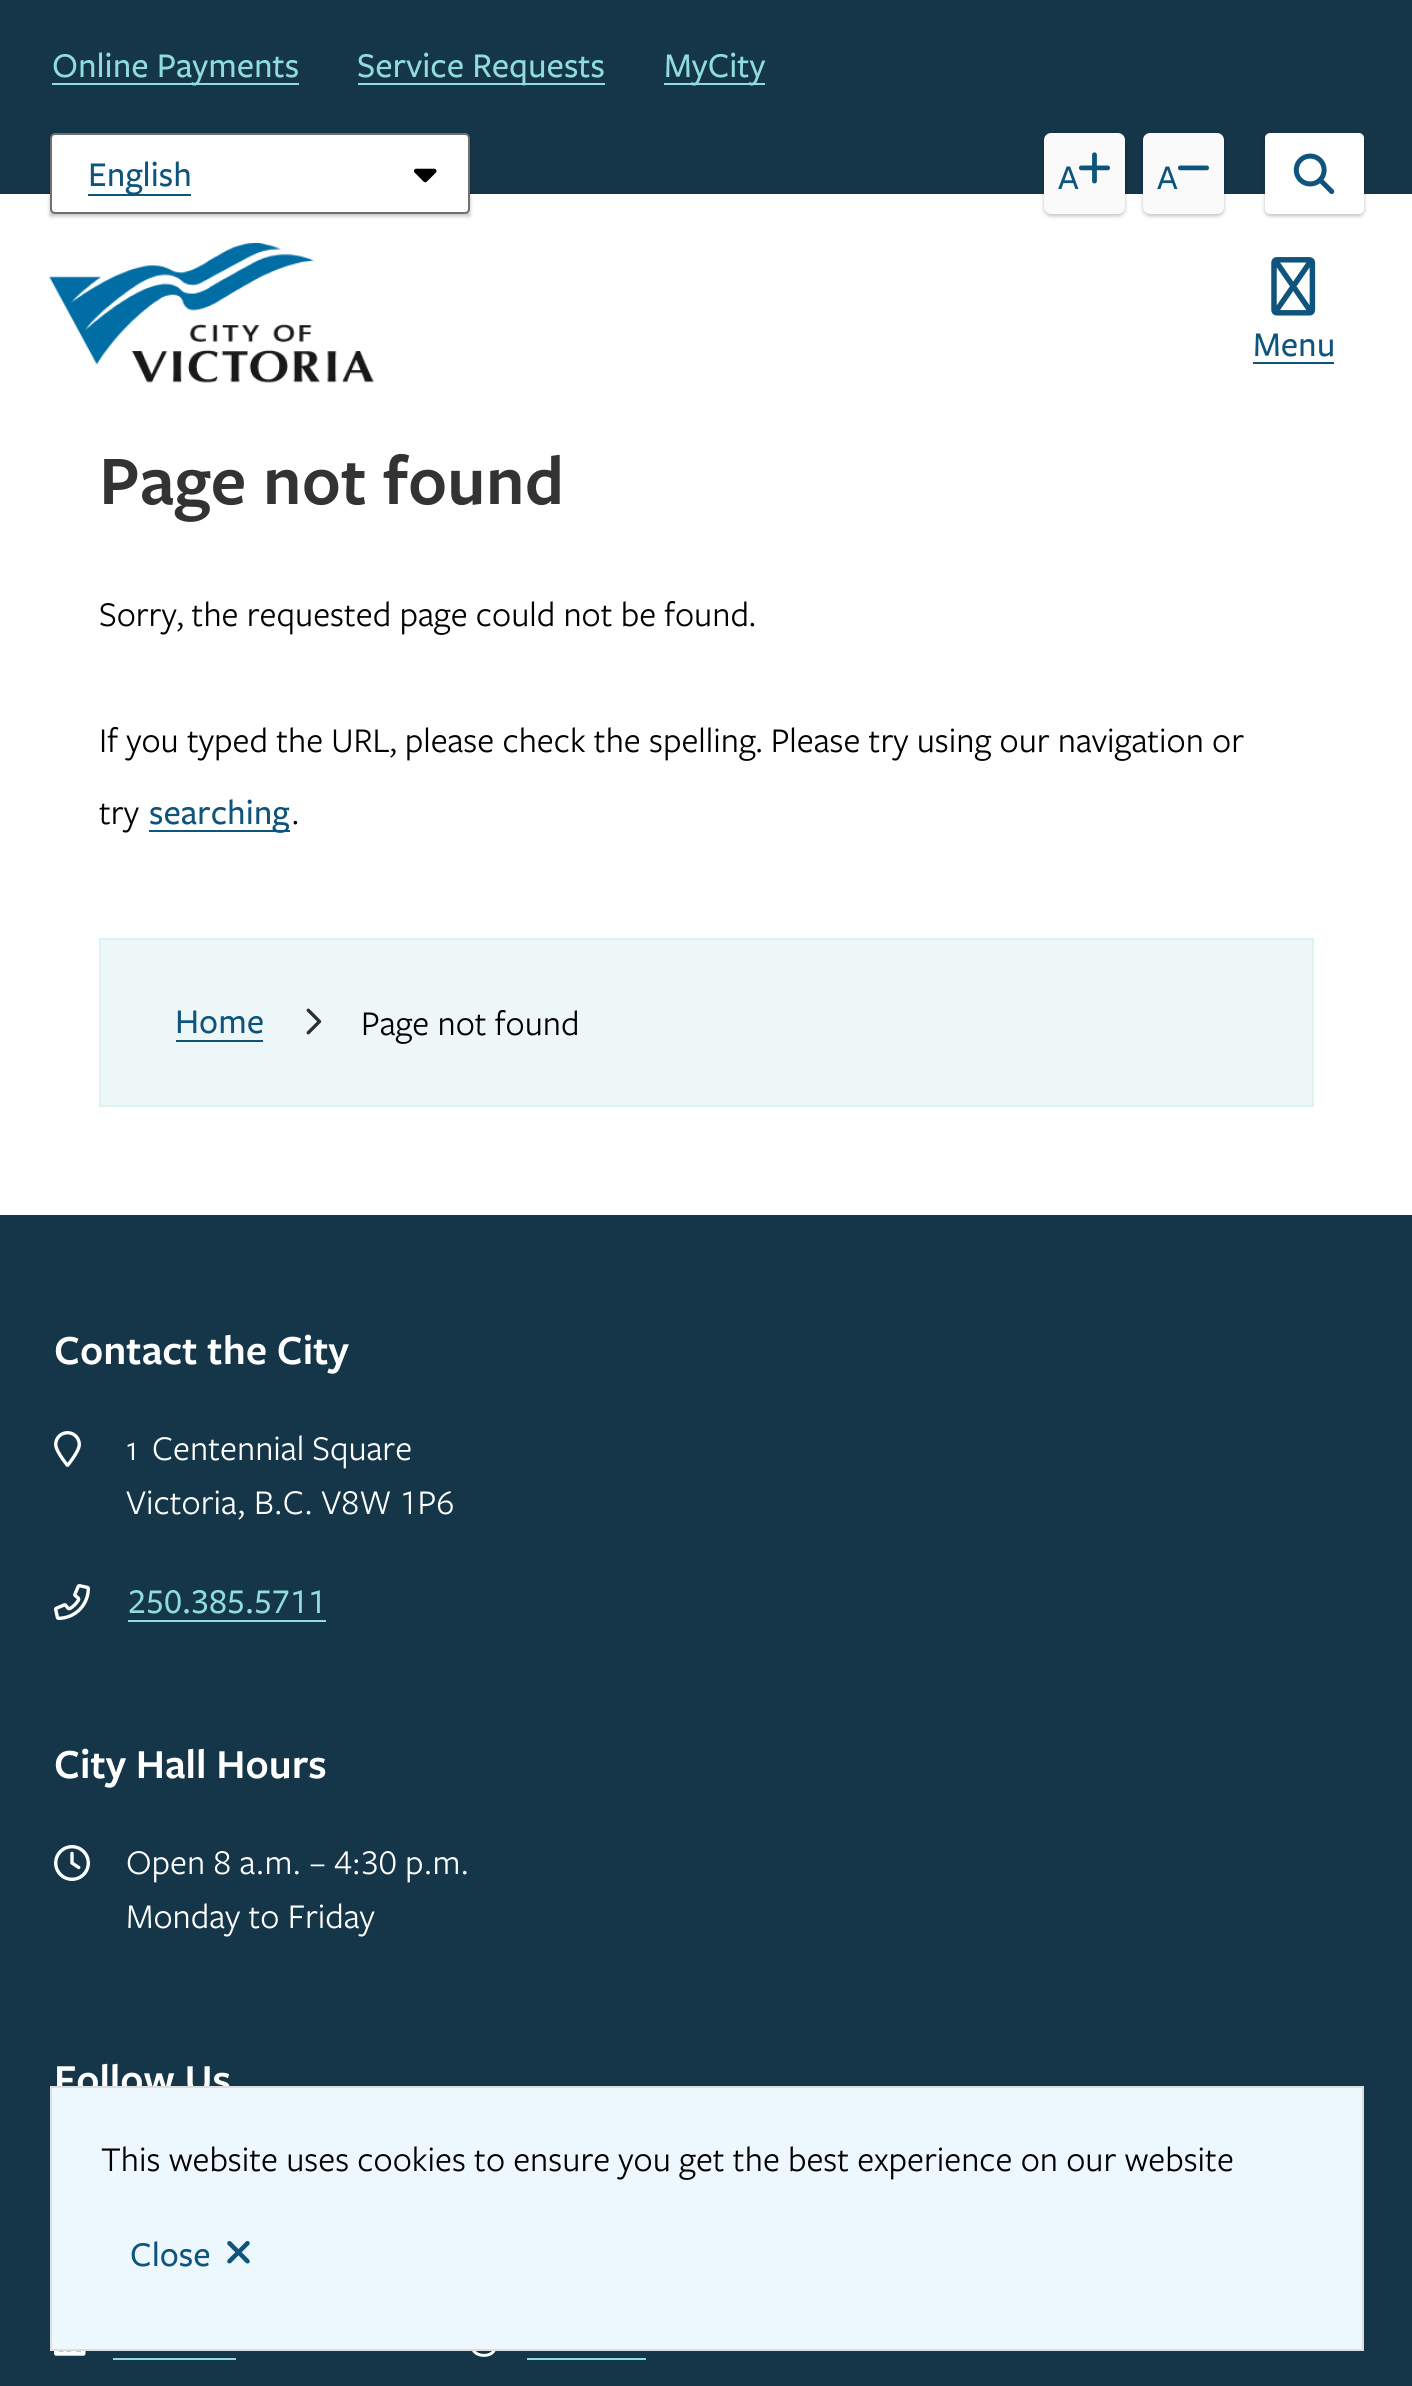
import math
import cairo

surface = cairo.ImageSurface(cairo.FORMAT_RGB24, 1412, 2386)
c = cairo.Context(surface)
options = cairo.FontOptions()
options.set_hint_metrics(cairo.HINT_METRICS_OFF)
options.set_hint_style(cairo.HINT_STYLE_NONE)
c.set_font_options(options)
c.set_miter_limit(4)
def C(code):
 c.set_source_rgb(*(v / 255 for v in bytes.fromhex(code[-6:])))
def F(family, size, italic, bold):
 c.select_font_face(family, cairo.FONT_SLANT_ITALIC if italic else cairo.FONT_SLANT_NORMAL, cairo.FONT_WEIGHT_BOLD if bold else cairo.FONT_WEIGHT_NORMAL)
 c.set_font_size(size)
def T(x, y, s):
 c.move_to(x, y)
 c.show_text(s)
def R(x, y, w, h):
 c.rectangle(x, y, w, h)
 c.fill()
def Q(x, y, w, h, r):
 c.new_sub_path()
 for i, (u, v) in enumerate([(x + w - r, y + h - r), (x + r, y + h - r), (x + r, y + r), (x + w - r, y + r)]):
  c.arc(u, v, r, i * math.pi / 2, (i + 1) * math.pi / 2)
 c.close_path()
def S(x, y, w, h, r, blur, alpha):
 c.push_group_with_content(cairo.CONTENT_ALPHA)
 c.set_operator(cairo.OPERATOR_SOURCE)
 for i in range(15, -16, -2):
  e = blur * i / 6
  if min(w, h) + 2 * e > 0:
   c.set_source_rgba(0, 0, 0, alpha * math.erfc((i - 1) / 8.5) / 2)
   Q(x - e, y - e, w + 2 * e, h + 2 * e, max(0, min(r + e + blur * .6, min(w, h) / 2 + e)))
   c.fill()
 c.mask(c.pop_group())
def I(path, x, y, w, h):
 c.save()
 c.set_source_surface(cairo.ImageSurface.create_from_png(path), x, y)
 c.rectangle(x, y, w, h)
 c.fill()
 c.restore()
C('ffffff')
c.paint()
C('153648')
R(0,0,1412,194)
C('8fdcda')
R(52,83,247,2)
F('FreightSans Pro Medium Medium',36,0,0)
T(52,77,'Online Payments')
R(358,83,247,2)
T(357,77,'Service Requests')
R(664,83,101,2)
T(664,77,'MyCity')
C('000000')
S(50,135,420,81,0,2,.25)
C('ffffff')
Q(51,134,418,79,4)
c.fill_preserve()
C('707070')
c.stroke()
C('0f547c')
R(88,194,103,2)
T(88,186,'English')
I('1.png',414,168,23,15)
C('000000')
S(1044,135,81,81,7,2,.25)
C('fafafa')
Q(1044,133,81,81,7)
c.fill()
C('0f547c')
T(1058,189,'A')
I('2.png',1079,152,31,32)
C('000000')
S(1143,135,81,81,7,2,.25)
C('fafafa')
Q(1143,133,81,81,7)
c.fill()
C('0f547c')
T(1157,189,'A')
I('3.png',1178,165,31,6)
C('000000')
S(1265,135,99,81,5,2,.25)
C('ffffff')
Q(1265,133,99,81,5)
c.fill()
I('4.png',1293,153,42,41)
I('5.png',49,243,325,140)
I('6.png',1271,257,45,59)
C('0f547c')
T(1253,356,'Menu')
R(1253,362,81,2)
F('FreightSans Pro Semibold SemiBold',72,0,0)
C('333333')
T(99,504,'Page not found')
F('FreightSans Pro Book',36,0,0)
C('000000')
T(99,626,'Sorry, the requested page could not be found.')
T(99,752,'If you typed the URL, please check the spelling. Please try using our navigation or')
T(99,824,'try')
C('0f547c')
R(149,830,141,2)
F('FreightSans Pro Medium Medium',36,0,0)
T(149,824,'searching')
F('FreightSans Pro Book',36,0,0)
C('000000')
T(292,824,'.')
C('edf7f7')
c.rectangle(100,939,1213,167)
c.fill_preserve()
C('d9f2f2')
c.stroke()
F('FreightSans Pro Medium Medium',36,0,0)
C('0f547c')
T(175,1033,'Home')
R(176,1040,87,2)
I('7.png',306,1008,16,27)
F('FreightSans Pro Book',36,0,0)
C('000000')
T(361,1035,'Page not found')
C('153648')
R(0,1215,1412,1171)
F('FreightSans Pro Semibold SemiBold',42.75,0,0)
C('ffffff')
T(54,1364,'Contact the City')
I('8.png',54,1431,27,36)
F('FreightSans Pro Book',36,0,0)
T(126,1460,'1')
T(152,1460,'Centennial Square')
F('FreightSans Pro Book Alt',36,0,0)
T(126,1514,'Victoria, B.C. V8W 1P6')
I('9.png',54,1584,36,36)
F('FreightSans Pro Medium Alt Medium',36,0,0)
C('8fdcda')
T(128,1613,'250.385.5711')
R(128,1620,198,2)
F('FreightSans Pro Semibold SemiBold',42.75,0,0)
C('ffffff')
T(54,1778,'City Hall Hours')
I('10.png',54,1845,36,36)
F('FreightSans Pro Book Alt',36,0,0)
T(126,1874,'Open 8 a.m. – 4:30 p.m.')
F('FreightSans Pro Book',36,0,0)
T(126,1928,'Monday to Friday')
F('FreightSans Pro Semibold SemiBold',42.75,0,0)
T(54,2093,'Follow Us')
I('11.png',54,2351,32,5)
C('8fdcda')
R(113,2358,123,2)
I('12.png',472,2351,24,6)
R(527,2358,119,2)
C('ecf7fe')
c.rectangle(51,2087,1312,263)
c.fill_preserve()
C('dddddd')
c.stroke()
F('FreightSans Pro Book',36,0,0)
C('000000')
T(101,2171,'This website uses cookies to ensure you get the best experience on our website')
F('FreightSans Pro Medium Medium',36,0,0)
C('0f547c')
T(130,2266,'Close')
I('13.png',227,2241,23,23)
surface.write_to_png('o.png')
